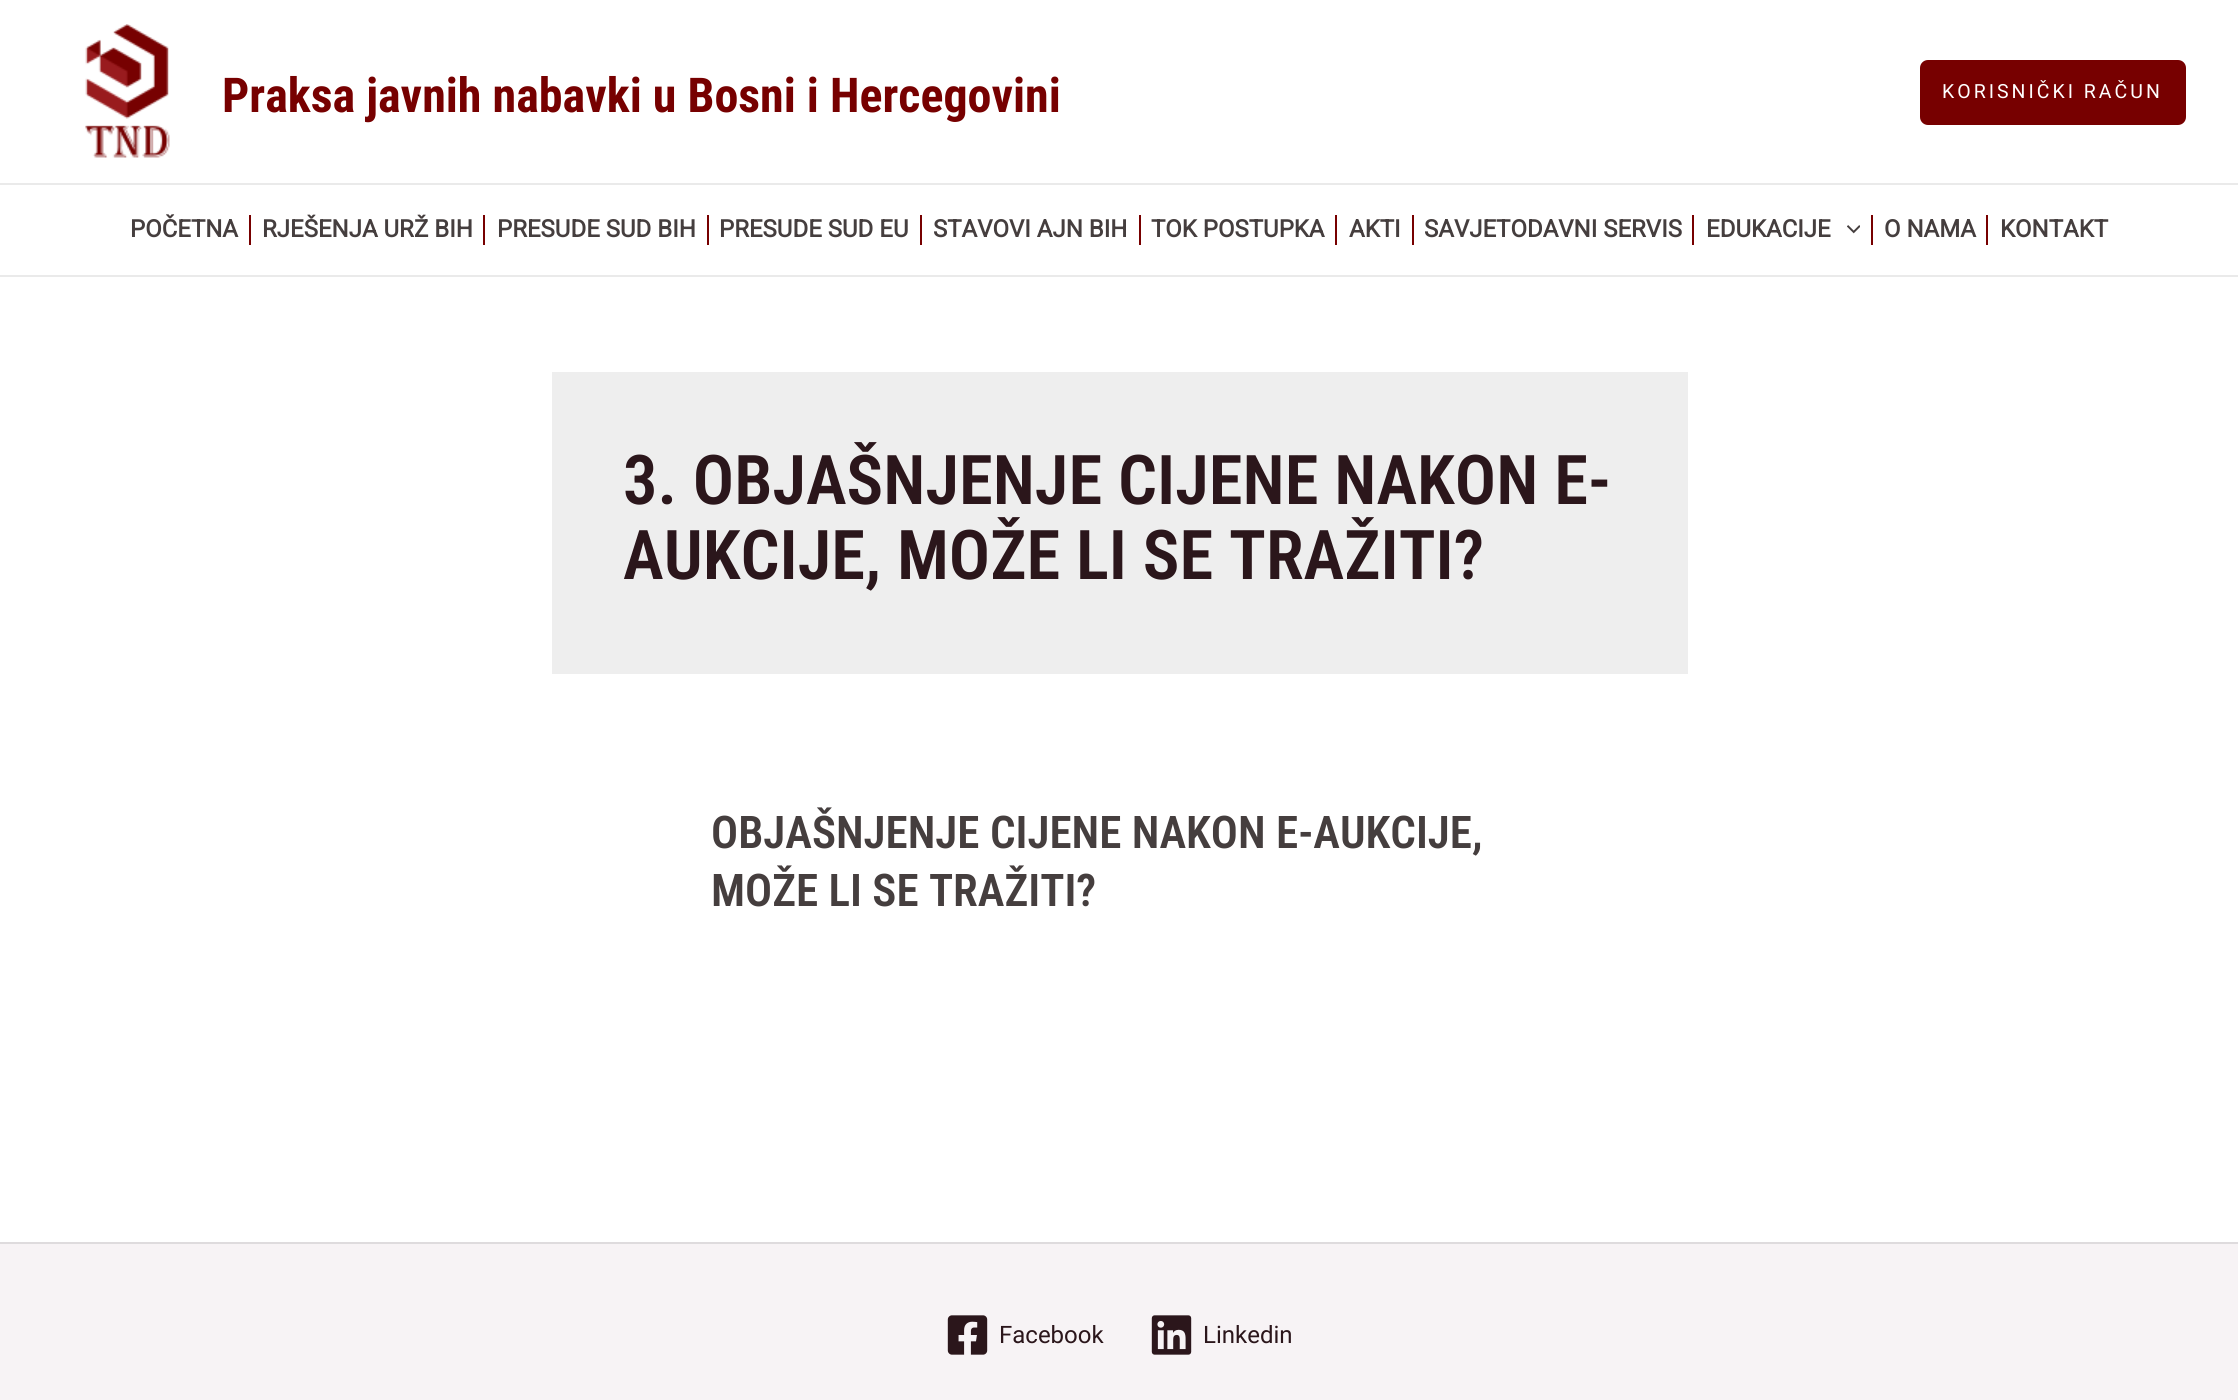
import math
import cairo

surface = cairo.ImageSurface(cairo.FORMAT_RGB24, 2238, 1400)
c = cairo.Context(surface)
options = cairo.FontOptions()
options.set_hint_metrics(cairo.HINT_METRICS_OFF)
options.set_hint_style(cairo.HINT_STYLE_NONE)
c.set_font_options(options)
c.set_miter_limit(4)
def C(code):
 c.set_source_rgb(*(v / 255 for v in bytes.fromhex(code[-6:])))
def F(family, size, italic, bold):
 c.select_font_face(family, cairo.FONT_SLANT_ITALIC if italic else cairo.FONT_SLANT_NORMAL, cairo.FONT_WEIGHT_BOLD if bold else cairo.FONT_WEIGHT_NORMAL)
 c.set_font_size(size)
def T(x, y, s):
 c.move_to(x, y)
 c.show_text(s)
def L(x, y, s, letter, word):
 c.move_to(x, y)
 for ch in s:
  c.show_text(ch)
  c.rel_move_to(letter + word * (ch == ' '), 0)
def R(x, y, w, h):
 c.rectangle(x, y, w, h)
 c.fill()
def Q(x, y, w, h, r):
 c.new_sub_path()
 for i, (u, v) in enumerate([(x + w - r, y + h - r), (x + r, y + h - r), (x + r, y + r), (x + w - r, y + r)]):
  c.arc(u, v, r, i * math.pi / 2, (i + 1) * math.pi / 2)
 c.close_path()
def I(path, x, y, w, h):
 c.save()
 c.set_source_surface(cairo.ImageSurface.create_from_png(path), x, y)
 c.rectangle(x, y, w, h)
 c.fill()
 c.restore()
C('ffffff')
c.paint()
C('eaeaea')
R(0,183,2238,2)
I('1.png',85,24,85,134)
F('Roboto Condensed',48,0,1)
C('770000')
T(222,112,'Praksa javnih nabavki u Bosni i Hercegovini')
Q(1920,60,266,65,8)
c.fill()
F('Roboto',19.5,0,0)
C('ffffff')
L(1942,98,'KORISNIČKI RAČUN',3,0)
C('eaeaea')
R(0,275,2238,2)
F('Roboto',24,0,1)
C('453e3e')
T(130,237,'POČETNA')
C('770000')
R(249,215,2,30)
C('453e3e')
T(262,237,'RJEŠENJA URŽ BIH')
C('770000')
R(483,215,2,30)
C('453e3e')
T(497,237,'PRESUDE SUD BIH')
C('770000')
R(707,215,2,30)
C('453e3e')
T(719,237,'PRESUDE SUD EU')
C('770000')
R(920,215,2,30)
C('453e3e')
T(933,237,'STAVOVI AJN BIH')
C('770000')
R(1139,215,2,30)
C('453e3e')
T(1151,237,'TOK POSTUPKA')
C('770000')
R(1335,215,2,30)
C('453e3e')
T(1349,237,'AKTI')
C('770000')
R(1412,215,2,30)
C('453e3e')
T(1424,237,'SAVJETODAVNI SERVIS')
C('770000')
R(1692,215,2,30)
C('453e3e')
T(1706,237,'EDUKACIJE')
I('2.png',1847,225,13,9)
C('770000')
R(1871,215,2,30)
C('453e3e')
T(1884,237,'O NAMA')
C('770000')
R(1986,215,2,30)
C('453e3e')
T(2000,237,'KONTAKT')
C('eeeeee')
R(552,372,1136,302)
F('Roboto Condensed SemiBold',68.6,0,0)
C('2b161b')
T(623,504,'3. OBJAŠNJENJE CIJENE NAKON E-')
T(623,579,'AUKCIJE, MOŽE LI SE TRAŽITI?')
F('Roboto Condensed SemiBold',45,0,0)
C('453e3e')
T(711,848,'OBJAŠNJENJE CIJENE NAKON E-AUKCIJE,')
T(711,906,'MOŽE LI SE TRAŽITI?')
C('f7f3f5')
R(0,1244,2238,156)
C('dedbdd')
R(0,1242,2238,2)
I('3.png',947,1315,41,40)
F('Roboto',24,0,0)
C('2b161b')
T(999,1343,'Facebook')
I('4.png',1151,1315,41,40)
T(1203,1343,'Linkedin')
surface.write_to_png('o.png')
